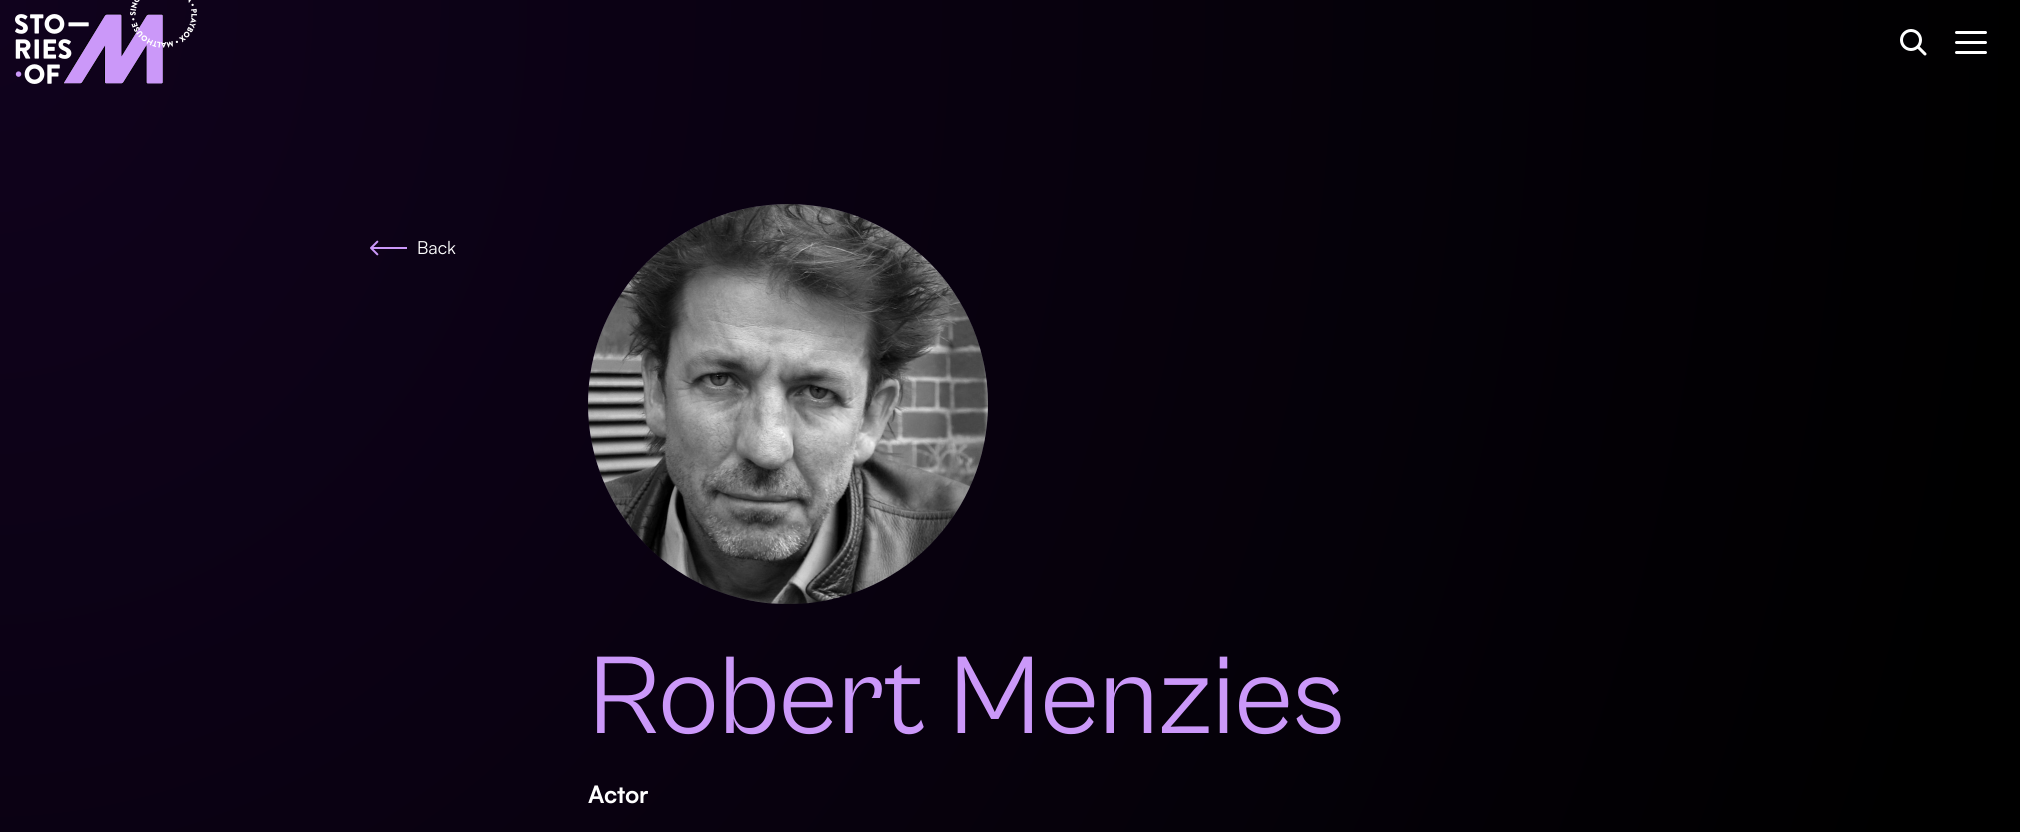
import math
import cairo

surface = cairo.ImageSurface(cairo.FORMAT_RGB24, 2020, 832)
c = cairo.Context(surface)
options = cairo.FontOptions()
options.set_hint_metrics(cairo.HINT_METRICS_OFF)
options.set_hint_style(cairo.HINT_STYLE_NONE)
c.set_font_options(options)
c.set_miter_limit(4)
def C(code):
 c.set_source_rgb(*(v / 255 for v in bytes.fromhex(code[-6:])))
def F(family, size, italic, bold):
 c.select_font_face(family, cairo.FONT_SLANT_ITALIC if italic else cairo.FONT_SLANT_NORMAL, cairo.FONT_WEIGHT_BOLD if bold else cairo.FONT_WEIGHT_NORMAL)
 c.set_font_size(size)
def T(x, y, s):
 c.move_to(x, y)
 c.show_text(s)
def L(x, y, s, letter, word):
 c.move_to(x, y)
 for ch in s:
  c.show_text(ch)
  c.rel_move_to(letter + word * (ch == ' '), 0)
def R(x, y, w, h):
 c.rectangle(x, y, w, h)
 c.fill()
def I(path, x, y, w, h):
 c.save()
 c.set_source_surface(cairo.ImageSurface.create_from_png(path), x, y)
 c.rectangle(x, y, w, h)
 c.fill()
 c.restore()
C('ffffff')
c.paint()
gradient = cairo.RadialGradient(0,0,0,0,0,1)
gradient.set_matrix(cairo.Matrix(1 / 2020, 0, 0, 1 / 2376, -1 * 0 / 2020, -1 * 0 / 2376))
gradient.add_color_stop_rgba(0,0.063,0.008,0.114,1)
gradient.add_color_stop_rgba(1,0,0,0,1)
c.set_source(gradient)
R(0,0,2020,832)
I('1.png',15,0,182,84)
c.arc(1911,40,9.5,0,2 * math.pi)
C('ffffff')
c.set_line_width(3)
c.stroke()
c.new_path()
c.move_to(1918,47)
c.line_to(1925,54)
c.set_line_cap(cairo.LINE_CAP_ROUND)
c.stroke()
I('2.png',1955,31,32,23)
I('3.png',370,240,37,16)
F('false',18,0,0)
T(417,254,'Back')
gradient = cairo.LinearGradient(651,167,925,641)
gradient.add_color_stop_rgba(0,0.796,0.596,0.976,.2)
gradient.add_color_stop_rgba(1,0.796,0.596,0.976,.05)
c.set_source(gradient)
c.new_path()
c.arc(788,404,200,0,2 * math.pi)
c.fill()
I('4.png',588,204,400,400)
F('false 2',114,0,0)
C('cb98f9')
L(588,733,'Robert Menzies',-1.1,0)
F('false',24,0,1)
C('ffffff')
L(588,803,'Actor',-.25,0)
surface.write_to_png('o.png')
